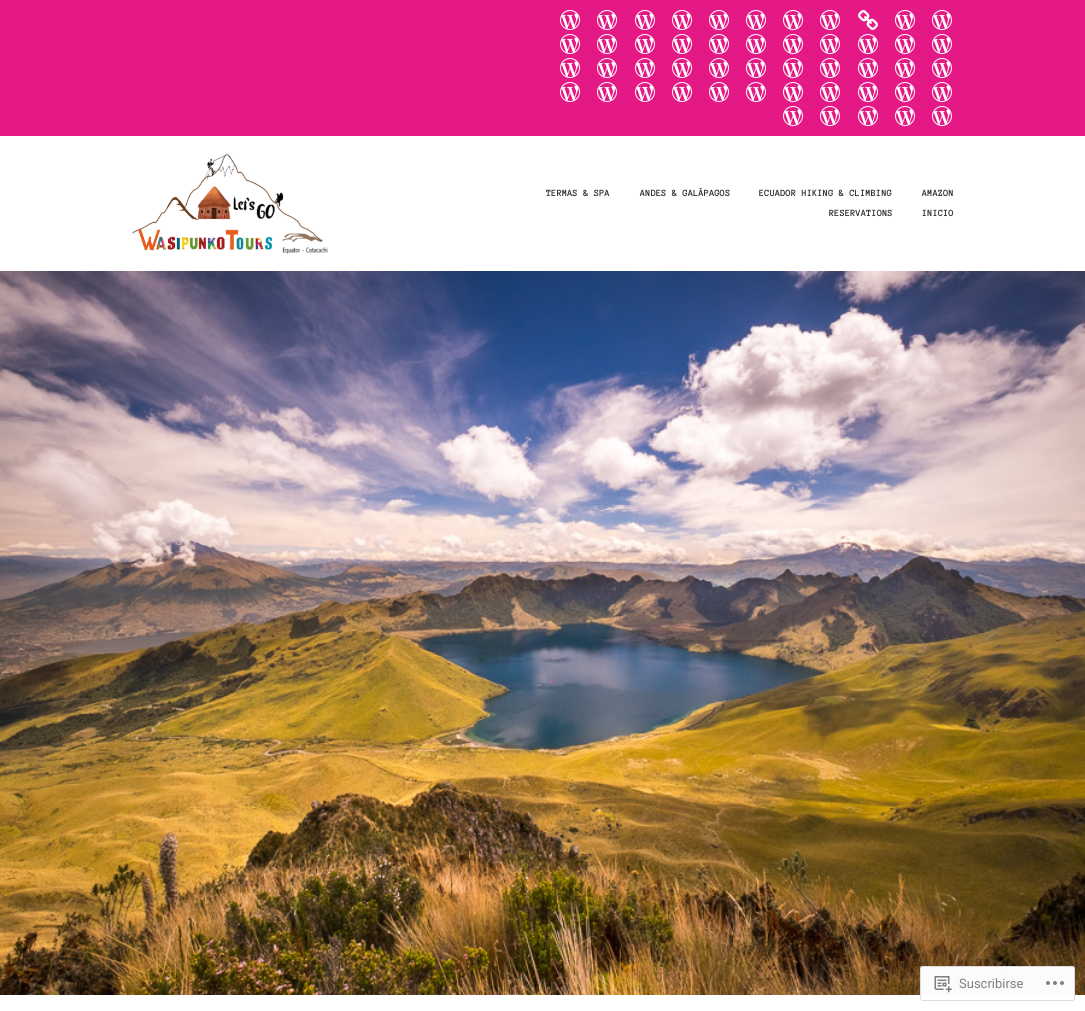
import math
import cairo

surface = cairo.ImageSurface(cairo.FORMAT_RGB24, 1085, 1011)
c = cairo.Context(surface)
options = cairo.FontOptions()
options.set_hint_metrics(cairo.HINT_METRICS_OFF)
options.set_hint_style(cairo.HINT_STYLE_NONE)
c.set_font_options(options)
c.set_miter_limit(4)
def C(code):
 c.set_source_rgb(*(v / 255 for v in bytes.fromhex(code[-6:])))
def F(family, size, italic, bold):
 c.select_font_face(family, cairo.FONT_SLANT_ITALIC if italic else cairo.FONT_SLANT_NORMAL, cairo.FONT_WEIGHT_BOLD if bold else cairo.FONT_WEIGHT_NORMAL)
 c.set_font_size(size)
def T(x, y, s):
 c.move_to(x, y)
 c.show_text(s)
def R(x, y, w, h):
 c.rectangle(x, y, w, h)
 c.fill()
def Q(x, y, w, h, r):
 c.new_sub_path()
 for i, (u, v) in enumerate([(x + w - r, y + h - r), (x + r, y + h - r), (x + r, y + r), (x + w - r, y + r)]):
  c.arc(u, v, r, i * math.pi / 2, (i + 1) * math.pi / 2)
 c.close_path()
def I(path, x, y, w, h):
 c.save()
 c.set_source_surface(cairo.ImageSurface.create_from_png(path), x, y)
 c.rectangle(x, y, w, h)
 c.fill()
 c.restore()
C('ffffff')
c.paint()
C('e51986')
R(0,0,1085,136)
I('1.png',560,10,20,20)
I('1.png',597,10,20,20)
I('1.png',635,10,20,20)
I('1.png',672,10,20,20)
I('1.png',709,10,20,20)
I('1.png',746,10,20,20)
I('1.png',783,10,20,20)
I('1.png',820,10,20,20)
I('2.png',858,10,20,20)
I('1.png',895,10,20,20)
I('1.png',932,10,20,20)
I('1.png',560,34,20,20)
I('1.png',597,34,20,20)
I('1.png',635,34,20,20)
I('1.png',672,34,20,20)
I('1.png',709,34,20,20)
I('1.png',746,34,20,20)
I('1.png',783,34,20,20)
I('1.png',820,34,20,20)
I('1.png',858,34,20,20)
I('1.png',895,34,20,20)
I('1.png',932,34,20,20)
I('1.png',560,58,20,20)
I('1.png',597,58,20,20)
I('1.png',635,58,20,20)
I('1.png',672,58,20,20)
I('1.png',709,58,20,20)
I('1.png',746,58,20,20)
I('1.png',783,58,20,20)
I('1.png',820,58,20,20)
I('1.png',858,58,20,20)
I('1.png',895,58,20,20)
I('1.png',932,58,20,20)
I('1.png',560,82,20,20)
I('1.png',597,82,20,20)
I('1.png',635,82,20,20)
I('1.png',672,82,20,20)
I('1.png',709,82,20,20)
I('1.png',746,82,20,20)
I('1.png',783,82,20,20)
I('1.png',820,82,20,20)
I('1.png',858,82,20,20)
I('1.png',895,82,20,20)
I('1.png',932,82,20,20)
I('1.png',783,106,20,20)
I('1.png',820,106,20,20)
I('1.png',858,106,20,20)
I('1.png',895,106,20,20)
I('1.png',932,106,20,20)
I('3.png',132,153,196,101)
F('Anonymous Pro',9.75,0,1)
C('333333')
T(546,196,'TERMAS & SPA')
T(640,196,'ANDES & GALÁPAGOS')
T(759,196,'ECUADOR HIKING & CLIMBING')
T(922,196,'AMAZON')
T(829,216,'RESERVATIONS')
T(922,216,'INICIO')
I('4.png',0,271,1085,724)
c.set_source_rgba(1,1,1,0.98)
Q(920,966,155,35,3)
c.fill()
Q(920.5,966.5,154,34,2.5)
c.set_source_rgba(0.863,0.863,0.871,0.98)
c.set_line_width(1)
c.stroke()
I('5.png',934,976,18,17)
F('Roboto',13,0,0)
C('7b7f84')
T(959,988,'Suscribirse')
I('6.png',1046,981,18,4)
surface.write_to_png('o.png')
